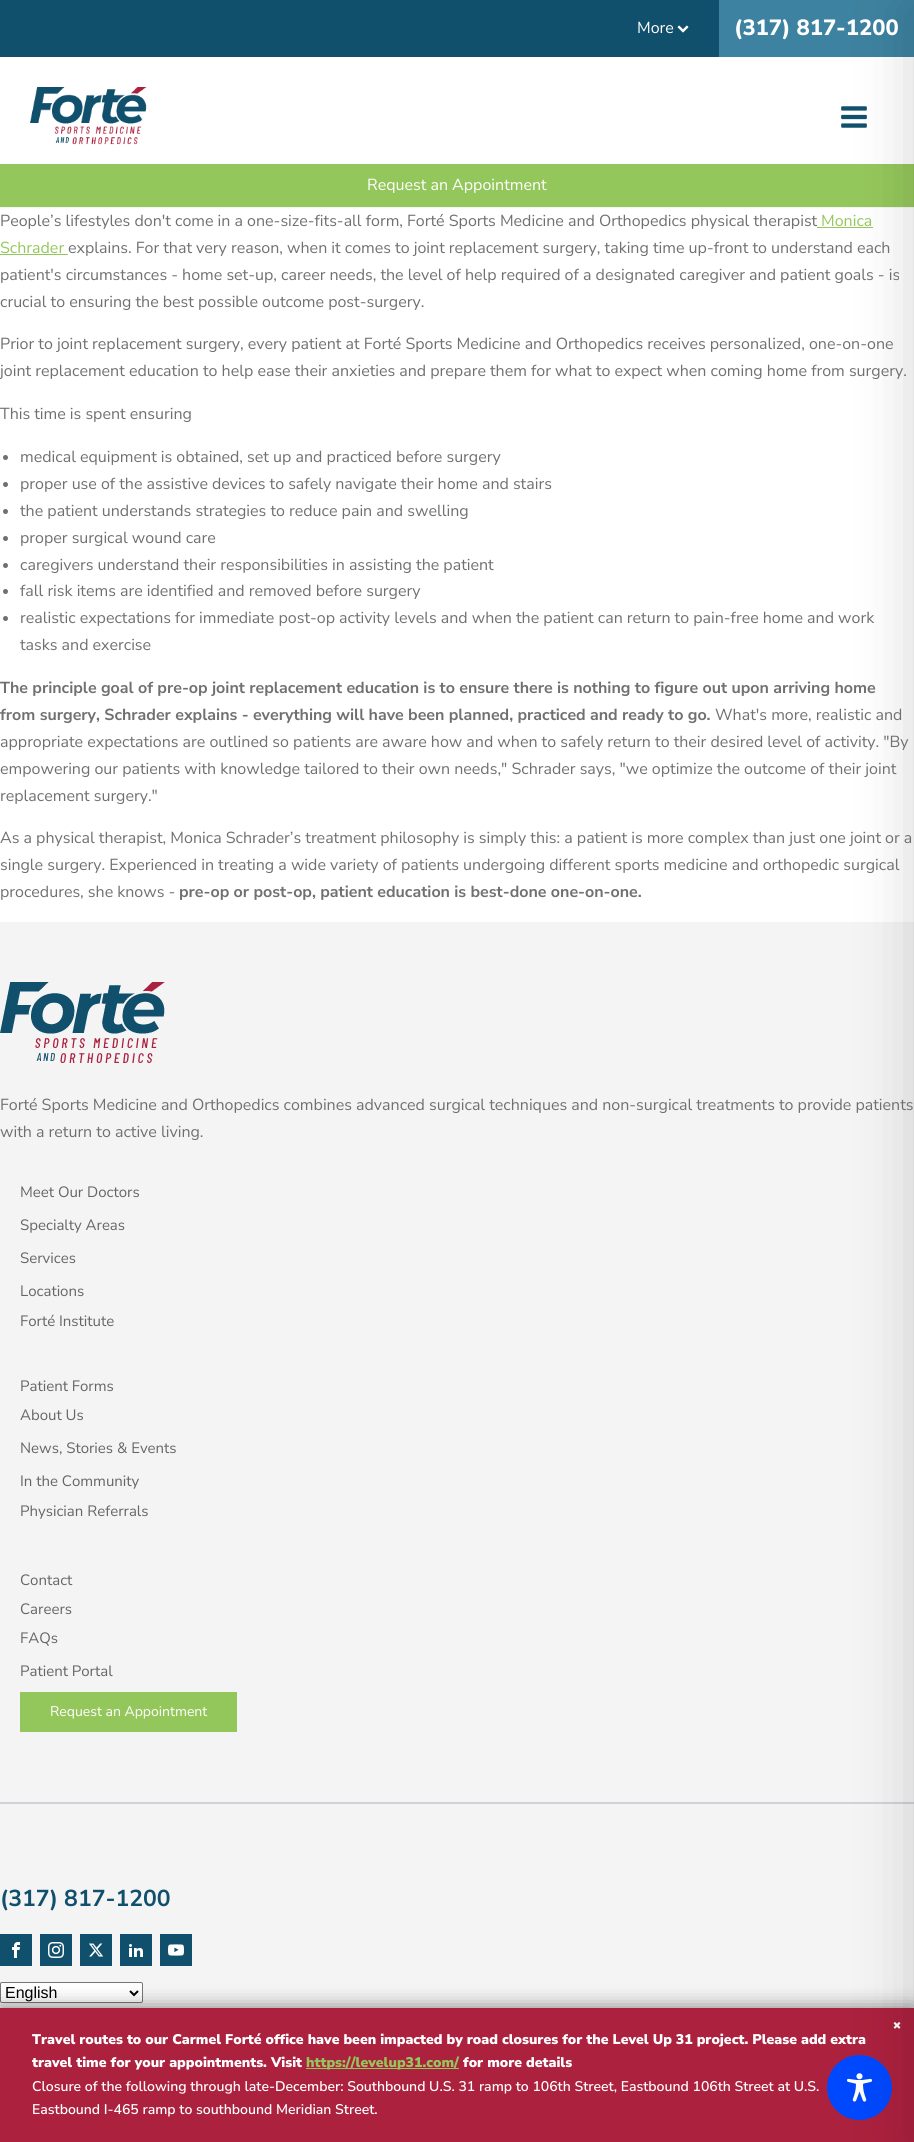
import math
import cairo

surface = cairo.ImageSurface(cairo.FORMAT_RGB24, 914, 2142)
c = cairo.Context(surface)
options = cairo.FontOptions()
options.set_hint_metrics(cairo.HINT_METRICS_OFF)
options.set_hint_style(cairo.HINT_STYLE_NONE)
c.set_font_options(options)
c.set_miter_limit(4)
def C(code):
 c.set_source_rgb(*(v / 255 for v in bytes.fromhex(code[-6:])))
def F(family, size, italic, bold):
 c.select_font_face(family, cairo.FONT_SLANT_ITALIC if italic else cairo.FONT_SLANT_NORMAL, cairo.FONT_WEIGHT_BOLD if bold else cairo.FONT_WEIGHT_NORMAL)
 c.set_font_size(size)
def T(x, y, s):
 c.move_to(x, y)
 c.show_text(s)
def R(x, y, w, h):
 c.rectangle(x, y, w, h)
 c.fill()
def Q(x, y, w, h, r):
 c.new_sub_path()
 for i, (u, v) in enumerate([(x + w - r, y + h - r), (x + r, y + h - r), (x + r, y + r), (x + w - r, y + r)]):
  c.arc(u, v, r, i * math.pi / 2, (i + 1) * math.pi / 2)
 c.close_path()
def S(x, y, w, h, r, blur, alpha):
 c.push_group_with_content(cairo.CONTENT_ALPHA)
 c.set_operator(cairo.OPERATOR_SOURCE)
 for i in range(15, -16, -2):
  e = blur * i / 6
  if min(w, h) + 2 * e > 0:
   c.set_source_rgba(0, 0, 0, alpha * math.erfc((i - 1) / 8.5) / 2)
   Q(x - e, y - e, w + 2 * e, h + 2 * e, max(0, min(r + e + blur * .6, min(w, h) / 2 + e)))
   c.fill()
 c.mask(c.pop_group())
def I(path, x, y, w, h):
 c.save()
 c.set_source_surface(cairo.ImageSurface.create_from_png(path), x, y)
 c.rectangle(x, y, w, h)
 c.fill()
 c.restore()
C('ffffff')
c.paint()
C('f4f4f4')
R(0,207,914,1)
C('3d82a0')
R(719,0,195,57)
I('3.png',841,106,26,22)
C('94c75b')
R(0,164,914,43)
F('Nunito Sans',16,0,0)
C('707070')
T(0,226,'People’s lifestyles don\'t come in a one-size-fits-all form, Forté Sports Medicine and Orthopedics physical therapist')
C('94c75b')
R(817,227,56,1)
C('f4f4f4')
R(0,922,914,1086)
C('cfd3d7')
R(0,1802,914,2)
C('ffffff')
Q(.5,1982.5,142,20,1.5)
c.fill_preserve()
C('767676')
c.set_line_width(1)
c.stroke()
c.new_path()
c.move_to(130,1991)
c.line_to(134,1995)
c.line_to(138,1991)
C('000000')
c.set_line_width(2)
c.stroke()
C('000000')
S(0,2008,914,134,0,10,.49)
C('ab213e')
R(0,2008,914,134)
I('10.png',893,2022,8,7)
C('0048fe')
c.arc(859.5,2087.5,32.5,0,2 * math.pi)
c.fill()
I('11.png',847,2073,25,29)
C('000000')
S(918,10,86,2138,0,30,.2)
C('11506c')
R(0,0,719,57)
C('ffffff')
T(637,33,'More')
I('1.png',677,25,12,8)
F('Nunito Sans ExtraBold',22,0,0)
T(734,35,'(317) 817-1200')
I('2.png',30,87,117,58)
F('Nunito Sans',16,0,0)
T(367,190,'Request an Appointment')
C('94c75b')
T(821,226,'Monica')
T(0,253,'Schrader')
R(0,254,68,1)
C('707070')
T(68,253,'explains. For that very reason, when it comes to joint replacement surgery, taking time up-front to understand each')
T(0,280,'patient\'s circumstances - home set-up, career needs, the level of help required of a designated caregiver and patient goals - is')
T(0,307,'crucial to ensuring the best possible outcome post-surgery.')
T(0,349,'Prior to joint replacement surgery, every patient at Forté Sports Medicine and Orthopedics receives personalized, one-on-one')
T(0,376,'joint replacement education to help ease their anxieties and prepare them for what to expect when coming home from surgery.')
T(0,419,'This time is spent ensuring')
c.new_path()
c.arc(5.5,457.5,2.5,0,2 * math.pi)
c.fill()
T(20,462,'medical equipment is obtained, set up and practiced before surgery')
c.new_path()
c.arc(5.5,484.5,2.5,0,2 * math.pi)
c.fill()
T(20,489,'proper use of the assistive devices to safely navigate their home and stairs')
c.new_path()
c.arc(5.5,511.5,2.5,0,2 * math.pi)
c.fill()
T(20,516,'the patient understands strategies to reduce pain and swelling')
c.new_path()
c.arc(5.5,538.5,2.5,0,2 * math.pi)
c.fill()
T(20,543,'proper surgical wound care')
c.new_path()
c.arc(5.5,565.5,2.5,0,2 * math.pi)
c.fill()
T(20,570,'caregivers understand their responsibilities in assisting the patient')
c.new_path()
c.arc(5.5,591.5,2.5,0,2 * math.pi)
c.fill()
T(20,596,'fall risk items are identified and removed before surgery')
c.new_path()
c.arc(5.5,618.5,2.5,0,2 * math.pi)
c.fill()
T(20,623,'realistic expectations for immediate post-op activity levels and when the patient can return to pain-free home and work')
T(20,650,'tasks and exercise')
F('Nunito Sans',16,0,1)
T(0,693,'The principle goal of pre-op joint replacement education is to ensure there is nothing to figure out upon arriving home')
T(0,720,'from surgery, Schrader explains - everything will have been planned, practiced and ready to go.')
F('Nunito Sans',16,0,0)
T(715,720,'What\'s more, realistic and')
T(0,747,'appropriate expectations are outlined so patients are aware how and when to safely return to their desired level of activity. "By')
T(0,774,'empowering our patients with knowledge tailored to their own needs," Schrader says, "we optimize the outcome of their joint')
T(0,801,'replacement surgery."')
T(0,843,'As a physical therapist, Monica Schrader’s treatment philosophy is simply this: a patient is more complex than just one joint or a')
T(0,870,'single surgery. Experienced in treating a wide variety of patients undergoing different sports medicine and orthopedic surgical')
T(0,897,'procedures, she knows -')
F('Nunito Sans',16,0,1)
T(179,897,'pre-op or post-op, patient education is best-done one-on-one.')
I('4.png',0,982,165,81)
F('Nunito Sans',16,0,0)
T(0,1110,'Forté Sports Medicine and Orthopedics combines advanced surgical techniques and non-surgical treatments to provide patients')
T(0,1137,'with a return to active living.')
F('Nunito Sans',15,0,0)
C('666666')
T(20,1197,'Meet Our Doctors')
T(20,1230,'Specialty Areas')
T(20,1263,'Services')
T(20,1296,'Locations')
T(20,1326,'Forté Institute')
T(20,1391,'Patient Forms')
T(20,1420,'About Us')
T(20,1453,'News, Stories & Events')
T(20,1486,'In the Community')
T(20,1516,'Physician Referrals')
T(20,1585,'Contact')
T(20,1614,'Careers')
T(20,1643,'FAQs')
T(20,1676,'Patient Portal')
C('94c75b')
R(20,1692,217,40)
F('Nunito Sans',14,0,0)
C('ffffff')
T(50,1716,'Request an Appointment')
F('Nunito Sans',23,0,1)
C('11506c')
T(0,1906,'(317) 817-1200')
R(0,1934,32,32)
I('5.png',12,1942,8,16)
R(40,1934,32,32)
I('6.png',48,1942,16,16)
R(80,1934,32,32)
I('7.png',89,1943,15,14)
R(120,1934,32,32)
I('8.png',129,1944,14,13)
R(160,1934,32,32)
I('9.png',168,1944,16,12)
F('Liberation Sans',16,0,0)
C('000000')
T(5,1998,'English')
F('Nunito Sans Black',14,0,0)
C('ffffff')
T(32,2044,'Travel routes to our Carmel Forté office have been impacted by road closures for the Level Up 31 project. Please add extra')
T(32,2067,'travel time for your appointments. Visit')
C('94c75b')
R(306,2068,153,1)
T(306,2067,'https://levelup31.com/')
C('ffffff')
T(463,2067,'for more details')
F('Nunito Sans SemiBold',14,0,0)
T(32,2091,'Closure of the following through late-December: Southbound U.S. 31 ramp to 106th Street, Eastbound 106th Street at U.S.')
T(32,2114,'Eastbound I-465 ramp to southbound Meridian Street.')
surface.write_to_png('o.png')
